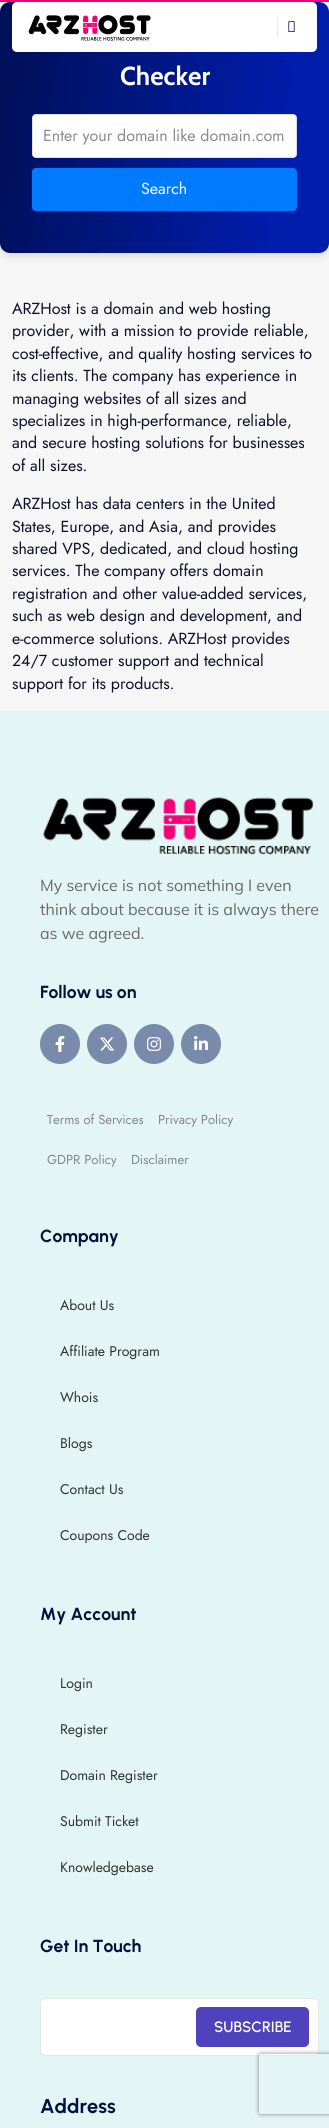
import math
import cairo

surface = cairo.ImageSurface(cairo.FORMAT_RGB24, 329, 2128)
c = cairo.Context(surface)
options = cairo.FontOptions()
options.set_hint_metrics(cairo.HINT_METRICS_OFF)
options.set_hint_style(cairo.HINT_STYLE_NONE)
c.set_font_options(options)
c.set_miter_limit(4)
def C(code):
 c.set_source_rgb(*(v / 255 for v in bytes.fromhex(code[-6:])))
def F(family, size, italic, bold):
 c.select_font_face(family, cairo.FONT_SLANT_ITALIC if italic else cairo.FONT_SLANT_NORMAL, cairo.FONT_WEIGHT_BOLD if bold else cairo.FONT_WEIGHT_NORMAL)
 c.set_font_size(size)
def T(x, y, s):
 c.move_to(x, y)
 c.show_text(s)
def R(x, y, w, h):
 c.rectangle(x, y, w, h)
 c.fill()
def Q(x, y, w, h, r):
 c.new_sub_path()
 for i, (u, v) in enumerate([(x + w - r, y + h - r), (x + r, y + h - r), (x + r, y + r), (x + w - r, y + r)]):
  c.arc(u, v, r, i * math.pi / 2, (i + 1) * math.pi / 2)
 c.close_path()
def S(x, y, w, h, r, blur, alpha):
 c.push_group_with_content(cairo.CONTENT_ALPHA)
 c.set_operator(cairo.OPERATOR_SOURCE)
 for i in range(15, -16, -2):
  e = blur * i / 6
  if min(w, h) + 2 * e > 0:
   c.set_source_rgba(0, 0, 0, alpha * math.erfc((i - 1) / 8.5) / 2)
   Q(x - e, y - e, w + 2 * e, h + 2 * e, max(0, min(r + e + blur * .6, min(w, h) / 2 + e)))
   c.fill()
 c.mask(c.pop_group())
def I(path, x, y, w, h):
 c.save()
 c.set_source_surface(cairo.ImageSurface.create_from_png(path), x, y)
 c.rectangle(x, y, w, h)
 c.fill()
 c.restore()
C('f6f6f6')
c.paint()
C('f40076')
R(0,0,329,2)
C('000000')
S(0,6,329,251,10,4,.1)
gradient = cairo.LinearGradient(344,154,-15,101)
gradient.add_color_stop_rgba(.16,0,0.114,0.675,1)
gradient.add_color_stop_rgba(.99,0,0.059,0.341,1)
c.set_source(gradient)
Q(0,2,329,251,10)
c.fill()
C('ffffff')
Q(12,2,305,50,5)
c.fill()
I('1.png',28,15,123,26)
C('e8e8e8')
R(277,18,1,18)
I('2.png',288,21,7,11)
F('Cabin',26,0,1)
C('ffffff')
T(120,85,'Checker')
Q(32.5,114.5,264,43,3.5)
c.fill_preserve()
C('dddddd')
c.set_line_width(1)
c.stroke()
F('Jost',16,0,0)
C('8d8989')
T(43,141,'Enter your domain like domain.com')
C('007bff')
Q(32,168,265,43,4)
c.fill()
C('ffffff')
T(141,194,'Search')
C('0f0f2d')
T(12,314,'ARZHost is a domain and web hosting')
T(12,336,'provider, with a mission to provide reliable,')
T(12,359,'cost-effective, and quality hosting services to')
T(12,381,'its clients. The company has experience in')
T(12,404,'managing websites of all sizes and')
T(12,426,'specializes in high-performance, reliable,')
T(12,448,'and secure hosting solutions for businesses')
T(12,471,'of all sizes.')
T(12,509,'ARZHost has data centers in the United')
T(12,532,'States, Europe, and Asia, and provides')
T(12,554,'shared VPS, dedicated, and cloud hosting')
T(12,576,'services. The company offers domain')
T(12,599,'registration and other value-added services,')
T(12,621,'such as web design and development, and')
T(12,644,'e-commerce solutions. ARZHost provides')
T(12,666,'24/7 customer support and technical')
T(12,689,'support for its products.')
C('e3f6f5')
R(0,711,329,1417)
I('3.png',43,797,271,58)
F('Mulish',16,0,0)
C('696969')
T(40,891,'My service is not something I even')
T(40,915,'think about because it is always there')
T(40,939,'as we agreed.')
F('Urbanist',17.5,0,1)
C('04103b')
T(40,998,'Follow us on')
C('7a8aab')
c.new_path()
c.arc(60,1044,20,0,2 * math.pi)
c.fill()
I('4.png',55,1036,10,16)
c.arc(107,1044,20,0,2 * math.pi)
c.fill()
I('5.png',100,1037,15,14)
c.arc(154,1044,20,0,2 * math.pi)
c.fill()
I('6.png',147,1037,14,14)
c.arc(201,1044,20,0,2 * math.pi)
c.fill()
I('7.png',194,1036,14,14)
F('Jost',13,0,0)
C('848689')
T(47,1124,'Terms of Services')
T(158,1124,'Privacy Policy')
T(47,1164,'GDPR Policy')
T(131,1164,'Disclaimer')
F('Urbanist',17.5,0,1)
C('04103b')
T(40,1242,'Company')
F('Jost',14,0,0)
C('303433')
T(60,1310,'About Us')
T(60,1356,'Affiliate Program')
T(60,1402,'Whois')
T(60,1448,'Blogs')
T(60,1494,'Contact Us')
T(60,1540,'Coupons Code')
F('Urbanist',17.5,0,1)
C('04103b')
T(40,1620,'My Account')
F('Jost',14,0,0)
C('303433')
T(60,1688,'Login')
T(60,1734,'Register')
T(60,1780,'Domain Register')
T(60,1826,'Submit Ticket')
T(60,1872,'Knowledgebase')
F('Urbanist',17.5,0,1)
C('04103b')
T(40,1952,'Get In Touch')
C('ffffff')
Q(40.5,1998.5,278,57,4.5)
c.fill_preserve()
C('e7e7e7')
c.stroke()
c.save()
c.set_fill_rule(cairo.FILL_RULE_EVEN_ODD)
c.new_path()
c.move_to(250,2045)
c.line_to(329,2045)
c.line_to(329,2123)
c.line_to(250,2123)
c.close_path()
c.move_to(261,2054)
c.line_to(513,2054)
c.curve_to(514,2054,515,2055,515,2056)
c.line_to(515,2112)
c.curve_to(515,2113,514,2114,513,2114)
c.line_to(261,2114)
c.curve_to(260,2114,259,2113,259,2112)
c.line_to(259,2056)
c.curve_to(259,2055,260,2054,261,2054)
c.close_path()
c.clip()
C('808080')
S(259,2054,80,60,2,2.5,1)
c.restore()
C('5041bc')
Q(196,2007,113,40,5)
c.fill()
F('Urbanist SemiBold',15,0,0)
C('ffffff')
T(214,2032,'SUBSCRIBE')
F('Urbanist',20,0,1)
C('001042')
T(40,2113,'Address')
surface.write_to_png('o.png')
